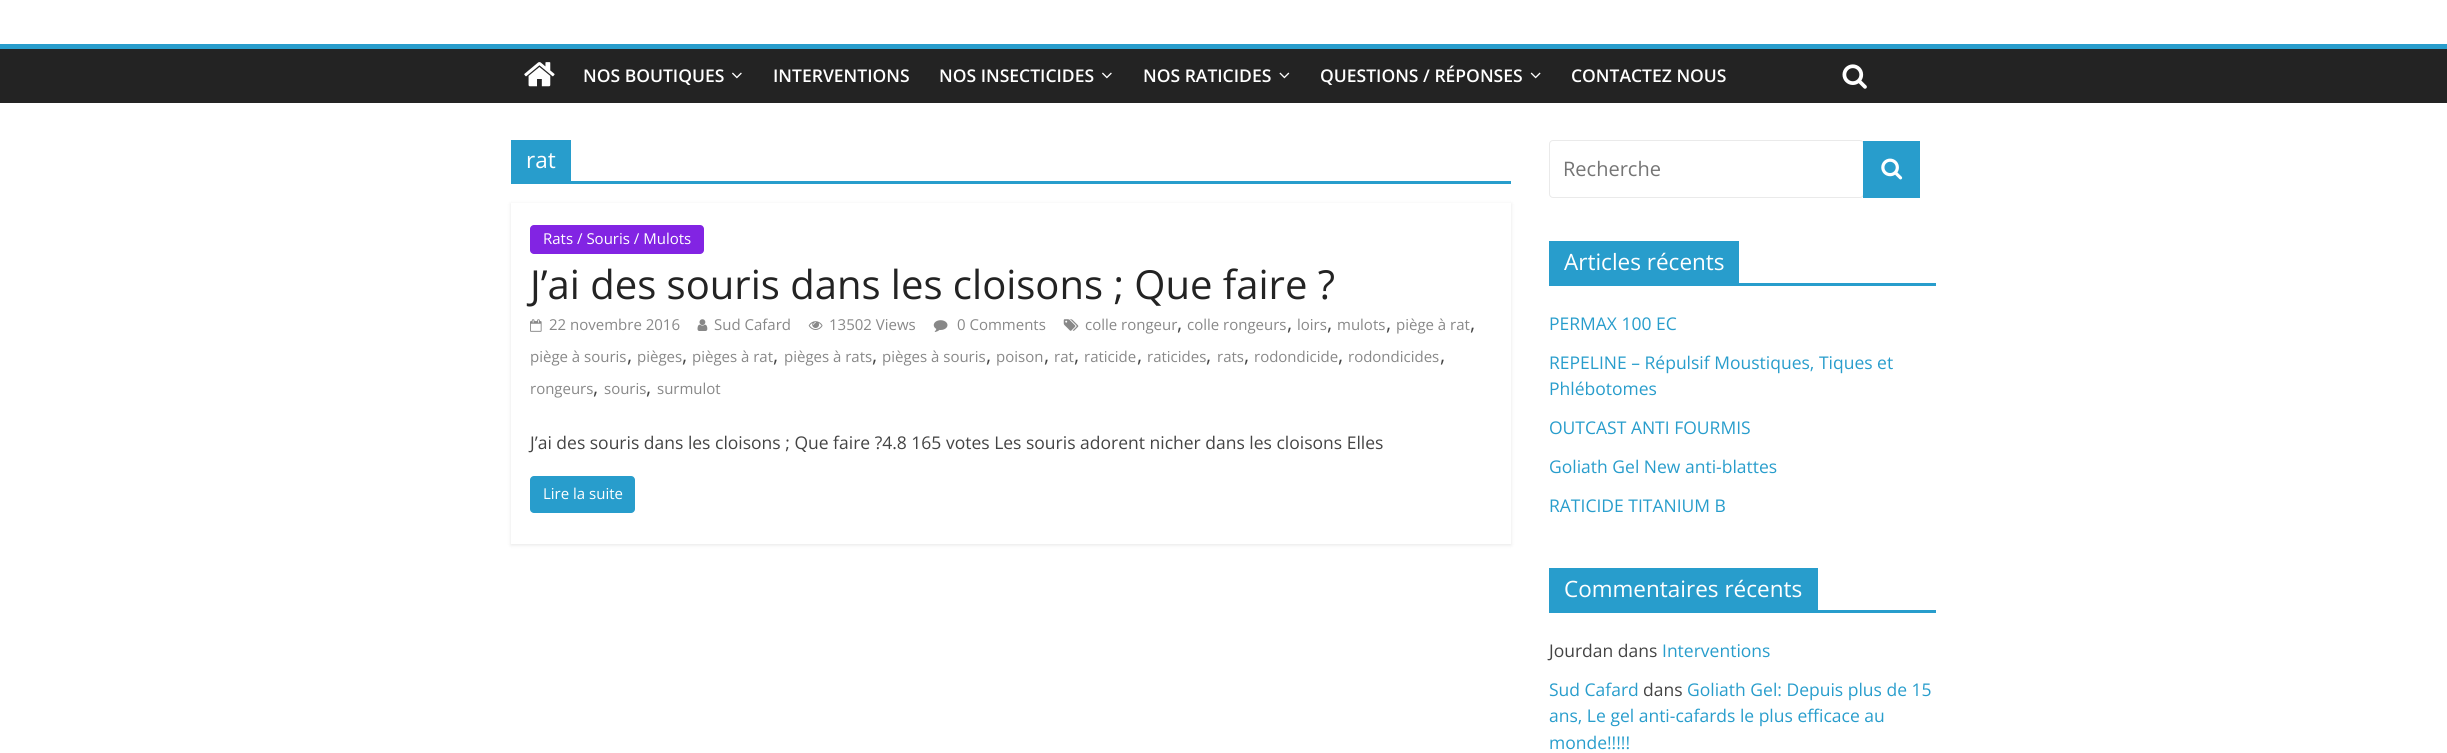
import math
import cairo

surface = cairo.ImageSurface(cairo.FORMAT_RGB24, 2447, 753)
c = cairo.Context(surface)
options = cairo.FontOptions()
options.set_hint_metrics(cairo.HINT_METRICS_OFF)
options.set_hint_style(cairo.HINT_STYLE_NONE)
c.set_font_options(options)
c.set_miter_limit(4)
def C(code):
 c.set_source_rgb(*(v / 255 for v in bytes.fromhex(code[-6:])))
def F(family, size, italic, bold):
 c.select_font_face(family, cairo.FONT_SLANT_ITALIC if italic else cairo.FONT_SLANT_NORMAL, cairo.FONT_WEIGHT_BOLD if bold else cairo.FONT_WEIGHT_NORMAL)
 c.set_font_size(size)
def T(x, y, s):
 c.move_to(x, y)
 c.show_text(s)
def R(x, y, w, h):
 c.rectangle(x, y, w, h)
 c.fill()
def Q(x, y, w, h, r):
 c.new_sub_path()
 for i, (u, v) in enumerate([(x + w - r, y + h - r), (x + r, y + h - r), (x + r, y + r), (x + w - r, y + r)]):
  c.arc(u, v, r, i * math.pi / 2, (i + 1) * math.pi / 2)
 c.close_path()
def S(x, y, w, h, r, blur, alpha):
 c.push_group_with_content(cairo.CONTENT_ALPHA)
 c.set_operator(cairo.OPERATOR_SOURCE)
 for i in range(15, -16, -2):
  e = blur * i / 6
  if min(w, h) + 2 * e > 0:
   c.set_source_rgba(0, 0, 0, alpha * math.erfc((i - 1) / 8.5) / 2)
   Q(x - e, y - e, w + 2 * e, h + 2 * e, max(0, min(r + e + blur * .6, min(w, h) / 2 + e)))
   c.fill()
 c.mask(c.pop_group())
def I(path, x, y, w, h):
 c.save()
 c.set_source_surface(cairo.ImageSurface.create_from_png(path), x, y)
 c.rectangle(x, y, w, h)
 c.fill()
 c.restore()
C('ffffff')
c.paint()
C('232323')
R(0,49,2447,54)
C('289dcc')
R(0,44,2447,5)
I('1.png',524,62,31,25)
F('Open Sans SemiBold',17.5,0,0)
C('ffffff')
T(583,82,'NOS BOUTIQUES')
I('2.png',732,72,10,7)
T(773,82,'INTERVENTIONS')
T(939,82,'NOS INSECTICIDES')
I('2.png',1102,72,10,7)
T(1143,82,'NOS RATICIDES')
I('3.png',1279,72,11,7)
T(1320,82,'QUESTIONS / RÉPONSES')
I('4.png',1530,72,11,7)
T(1571,82,'CONTACTEZ NOUS')
I('5.png',1842,64,25,25)
C('289dcc')
R(511,181,1000,3)
R(511,140,60,41)
F('Open Sans',22.5,0,0)
C('ffffff')
T(526,168,'rat')
c.save()
c.set_fill_rule(cairo.FILL_RULE_EVEN_ODD)
c.new_path()
c.move_to(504,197)
c.line_to(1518,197)
c.line_to(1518,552)
c.line_to(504,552)
c.close_path()
c.move_to(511,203)
c.line_to(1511,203)
c.line_to(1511,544)
c.line_to(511,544)
c.close_path()
c.clip()
C('000000')
S(511,204,1000,341,0,2,.1)
c.restore()
C('8224e3')
Q(530,225,174,29,4)
c.fill()
F('Open Sans',15,0,0)
C('ffffff')
T(543,244,'Rats / Souris / Mulots')
F('Open Sans',40,0,0)
C('232323')
T(530,299,'J’ai des souris dans les cloisons ; Que faire ?')
I('6.png',1063,319,16,12)
F('Open Sans',15,0,0)
C('888888')
T(1085,330,'colle rongeur')
F('Open Sans',20,0,0)
C('444444')
T(1177,330,',')
F('Open Sans',15,0,0)
C('888888')
T(1187,330,'colle rongeurs')
F('Open Sans',20,0,0)
C('444444')
T(1287,330,',')
F('Open Sans',15,0,0)
C('888888')
T(1297,330,'loirs')
F('Open Sans',20,0,0)
C('444444')
T(1327,330,',')
F('Open Sans',15,0,0)
C('888888')
T(1337,330,'mulots')
F('Open Sans',20,0,0)
C('444444')
T(1386,330,',')
F('Open Sans',15,0,0)
C('888888')
T(1396,330,'piège à rat')
F('Open Sans',20,0,0)
C('444444')
T(1470,330,',')
F('Open Sans',15,0,0)
C('888888')
T(530,362,'piège à souris')
F('Open Sans',20,0,0)
C('444444')
T(627,362,',')
F('Open Sans',15,0,0)
C('888888')
T(637,362,'pièges')
F('Open Sans',20,0,0)
C('444444')
T(682,362,',')
F('Open Sans',15,0,0)
C('888888')
T(692,362,'pièges à rat')
F('Open Sans',20,0,0)
C('444444')
T(773,362,',')
F('Open Sans',15,0,0)
C('888888')
T(784,362,'pièges à rats')
F('Open Sans',20,0,0)
C('444444')
T(872,362,',')
F('Open Sans',15,0,0)
C('888888')
T(882,362,'pièges à souris')
F('Open Sans',20,0,0)
C('444444')
T(986,362,',')
F('Open Sans',15,0,0)
C('888888')
T(996,362,'poison')
F('Open Sans',20,0,0)
C('444444')
T(1044,362,',')
F('Open Sans',15,0,0)
C('888888')
T(1054,362,'rat')
F('Open Sans',20,0,0)
C('444444')
T(1074,362,',')
F('Open Sans',15,0,0)
C('888888')
T(1084,362,'raticide')
F('Open Sans',20,0,0)
C('444444')
T(1137,362,',')
F('Open Sans',15,0,0)
C('888888')
T(1147,362,'raticides')
F('Open Sans',20,0,0)
C('444444')
T(1206,362,',')
F('Open Sans',15,0,0)
C('888888')
T(1217,362,'rats')
F('Open Sans',20,0,0)
C('444444')
T(1244,362,',')
F('Open Sans',15,0,0)
C('888888')
T(1254,362,'rodondicide')
F('Open Sans',20,0,0)
C('444444')
T(1338,362,',')
F('Open Sans',15,0,0)
C('888888')
T(1348,362,'rodondicides')
F('Open Sans',20,0,0)
C('444444')
T(1440,362,',')
F('Open Sans',15,0,0)
C('888888')
T(530,394,'rongeurs')
F('Open Sans',20,0,0)
C('444444')
T(593,394,',')
F('Open Sans',15,0,0)
C('888888')
T(604,394,'souris')
F('Open Sans',20,0,0)
C('444444')
T(646,394,',')
F('Open Sans',15,0,0)
C('888888')
T(657,394,'surmulot')
I('7.png',530,319,12,13)
T(549,330,'22 novembre 2016')
I('8.png',697,319,11,12)
T(714,330,'Sud Cafard')
I('9.png',808,321,15,9)
T(829,330,'13502 Views')
I('10.png',933,320,15,12)
T(957,330,'0 Comments')
F('Open Sans',17.5,0,0)
C('444444')
T(530,449,'J’ai des souris dans les cloisons ; Que faire ?4.8 165 votes Les souris adorent nicher dans les cloisons Elles')
C('289dcc')
Q(530,476,105,37,4)
c.fill()
F('Open Sans',15,0,0)
C('ffffff')
T(543,499,'Lire la suite')
Q(1549.5,140.5,314,57,3.5)
C('eaeaea')
c.set_line_width(1)
c.stroke()
F('Open Sans',20,0,0)
C('757575')
T(1563,176,'Recherche')
C('289dcc')
R(1863,141,57,57)
I('11.png',1881,158,22,22)
R(1549,283,387,3)
R(1549,241,190,42)
F('Open Sans',22.5,0,0)
C('ffffff')
T(1564,270,'Articles récents')
F('Open Sans',17.5,0,0)
C('289dcc')
T(1549,330,'PERMAX 100 EC')
T(1549,369,'REPELINE – Répulsif Moustiques, Tiques et')
T(1549,395,'Phlébotomes')
T(1549,434,'OUTCAST ANTI FOURMIS')
T(1549,473,'Goliath Gel New anti-blattes')
T(1549,512,'RATICIDE TITANIUM B')
R(1549,610,387,3)
R(1549,568,269,42)
F('Open Sans',22.5,0,0)
C('ffffff')
T(1564,597,'Commentaires récents')
F('Open Sans',17.5,0,0)
C('444444')
T(1549,657,'Jourdan dans')
C('289dcc')
T(1662,657,'Interventions')
T(1549,696,'Sud Cafard')
C('444444')
T(1643,696,'dans')
C('289dcc')
T(1687,696,'Goliath Gel: Depuis plus de 15')
T(1549,722,'ans, Le gel anti-cafards le plus efficace au')
T(1549,749,'monde!!!!!')
surface.write_to_png('o.png')
